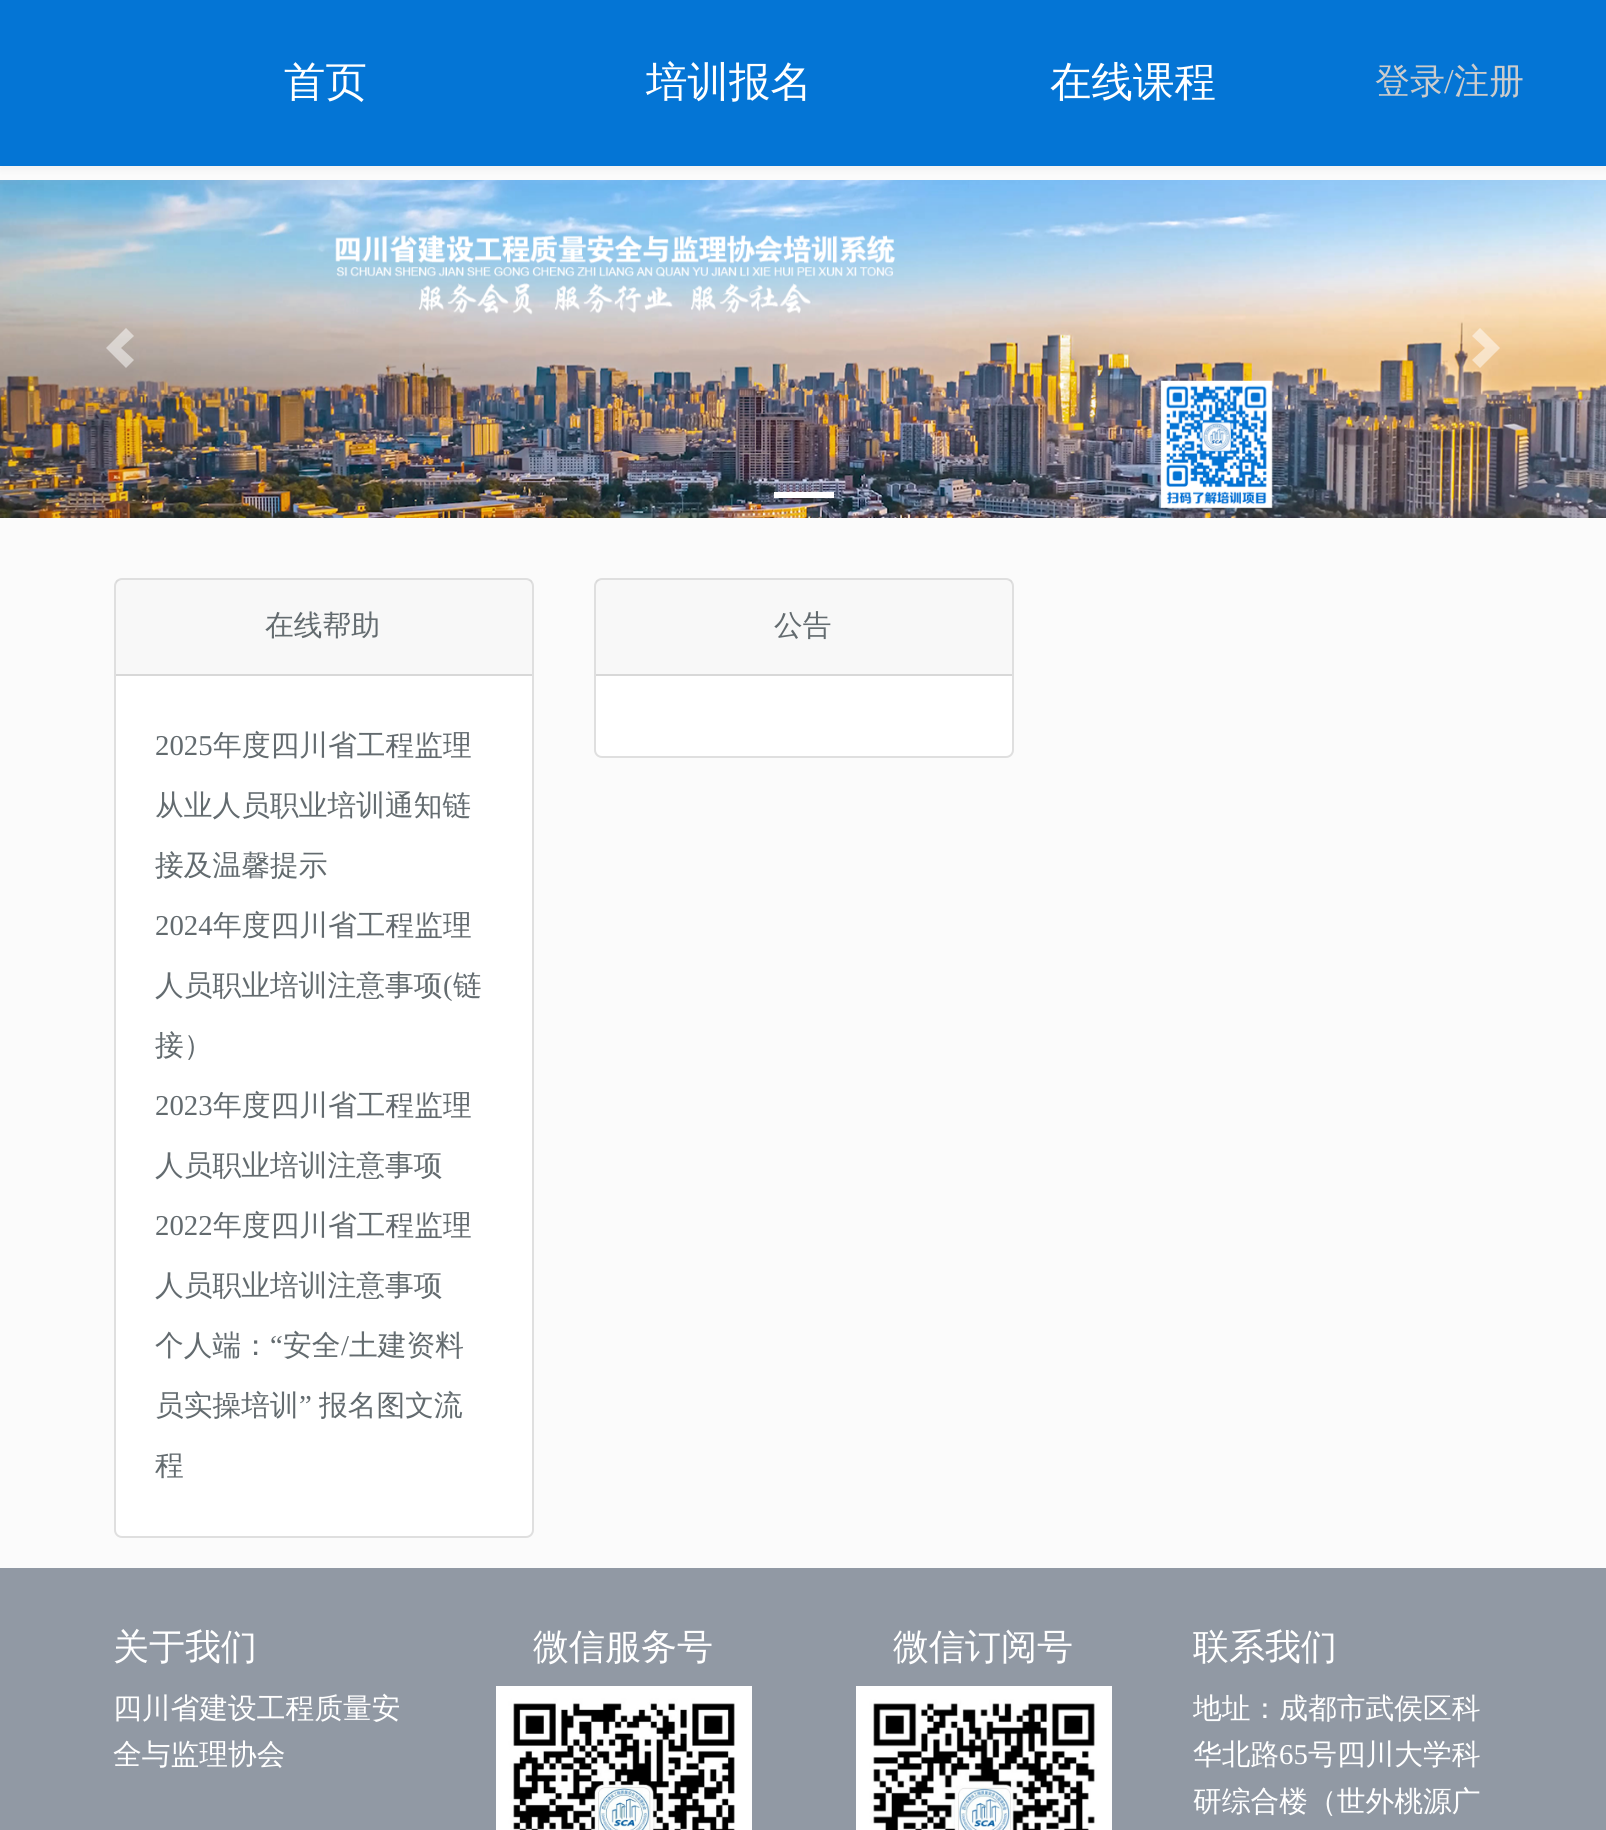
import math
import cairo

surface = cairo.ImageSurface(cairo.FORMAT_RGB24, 1606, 1830)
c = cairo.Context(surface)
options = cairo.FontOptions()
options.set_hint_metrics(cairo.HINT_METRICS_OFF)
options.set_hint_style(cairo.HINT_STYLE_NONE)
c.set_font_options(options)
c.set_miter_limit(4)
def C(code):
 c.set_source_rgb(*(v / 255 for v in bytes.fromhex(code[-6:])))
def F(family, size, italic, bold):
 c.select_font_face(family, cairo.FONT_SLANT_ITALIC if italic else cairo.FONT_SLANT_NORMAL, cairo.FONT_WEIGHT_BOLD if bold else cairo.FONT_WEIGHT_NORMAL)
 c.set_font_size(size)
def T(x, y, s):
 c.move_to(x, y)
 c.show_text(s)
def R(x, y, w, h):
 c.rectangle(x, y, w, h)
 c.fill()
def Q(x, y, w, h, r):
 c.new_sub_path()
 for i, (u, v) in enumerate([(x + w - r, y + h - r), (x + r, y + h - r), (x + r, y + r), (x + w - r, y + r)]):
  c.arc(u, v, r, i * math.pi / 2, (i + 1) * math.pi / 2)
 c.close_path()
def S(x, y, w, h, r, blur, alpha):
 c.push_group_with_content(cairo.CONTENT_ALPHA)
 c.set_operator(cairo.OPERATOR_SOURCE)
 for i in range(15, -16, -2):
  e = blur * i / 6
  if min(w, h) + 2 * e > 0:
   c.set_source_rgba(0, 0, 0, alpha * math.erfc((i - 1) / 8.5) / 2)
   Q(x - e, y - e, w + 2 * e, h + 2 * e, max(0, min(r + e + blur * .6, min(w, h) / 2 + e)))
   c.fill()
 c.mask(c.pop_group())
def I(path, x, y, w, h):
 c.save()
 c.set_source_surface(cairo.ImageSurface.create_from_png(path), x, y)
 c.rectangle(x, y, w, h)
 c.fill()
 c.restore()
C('fbfbfb')
c.paint()
I('1.png',0,180,1606,338)
C('000000')
S(0,4,1606,166,0,4,.04)
C('0475d5')
R(0,0,1606,166)
F('WenQuanYi Zen Hei Medium',41.5,0,0)
C('ffffff')
T(284,96,'首页')
T(646,96,'培训报名')
T(1050,96,'在线课程')
F('WenQuanYi Zen Hei Medium',35,0,0)
C('cccccc')
T(1375,93,'登录')
F('Liberation Serif',35,0,0)
T(1444,93,'/')
F('WenQuanYi Zen Hei Medium',35,0,0)
T(1454,93,'注册')
c.set_source_rgba(1,1,1,0.5)
c.new_path()
c.move_to(126,328)
c.line_to(106,348)
c.line_to(126,368)
c.line_to(134,360)
c.line_to(121,348)
c.line_to(134,336)
c.close_path()
c.fill()
c.new_path()
c.move_to(1480,328)
c.line_to(1472,336)
c.line_to(1485,348)
c.line_to(1472,360)
c.line_to(1480,368)
c.line_to(1500,348)
c.close_path()
c.fill()
C('ffffff')
R(774,492,60,6)
Q(115,579,418,958,7)
c.fill_preserve()
C('dfdfdf')
c.stroke()
c.set_source_rgba(0,0,0,0.03)
R(116,580,416,94)
C('d8d8d8')
R(116,674,416,2)
F('WenQuanYi Zen Hei Medium',28.75,0,0)
C('636b6f')
T(265,635,'在线帮助')
F('Liberation Serif',28.75,0,0)
T(155,755,'2025')
F('WenQuanYi Zen Hei Medium',28.75,0,0)
T(213,755,'年度四川省工程监理')
T(155,815,'从业人员职业培训通知链')
T(155,875,'接及温馨提示')
F('Liberation Serif',28.75,0,0)
T(155,935,'2024')
F('WenQuanYi Zen Hei Medium',28.75,0,0)
T(213,935,'年度四川省工程监理')
T(155,995,'人员职业培训注意事项')
F('Liberation Serif',28.75,0,0)
T(443,995,'(')
F('WenQuanYi Zen Hei Medium',28.75,0,0)
T(453,995,'链')
T(155,1055,'接）')
F('Liberation Serif',28.75,0,0)
T(155,1115,'2023')
F('WenQuanYi Zen Hei Medium',28.75,0,0)
T(213,1115,'年度四川省工程监理')
T(155,1175,'人员职业培训注意事项')
F('Liberation Serif',28.75,0,0)
T(155,1235,'2022')
F('WenQuanYi Zen Hei Medium',28.75,0,0)
T(213,1235,'年度四川省工程监理')
T(155,1295,'人员职业培训注意事项')
T(155,1355,'个人端：')
F('Liberation Serif',28.75,0,0)
T(270,1355,'“')
F('WenQuanYi Zen Hei Medium',28.75,0,0)
T(283,1355,'安全')
F('Liberation Serif',28.75,0,0)
T(341,1355,'/')
F('WenQuanYi Zen Hei Medium',28.75,0,0)
T(349,1355,'土建资料')
T(155,1415,'员实操培训')
F('Liberation Serif',28.75,0,0)
T(299,1415,'”')
F('WenQuanYi Zen Hei Medium',28.75,0,0)
T(319,1415,'报名图文流')
T(155,1475,'程')
C('ffffff')
Q(595,579,418,178,7)
c.fill_preserve()
C('dfdfdf')
c.stroke()
c.set_source_rgba(0,0,0,0.03)
R(596,580,416,94)
C('d8d8d8')
R(596,674,416,2)
C('636b6f')
T(774,635,'公告')
C('9199a4')
R(0,1568,1606,262)
F('WenQuanYi Zen Hei Medium',36,0,0)
C('ffffff')
T(113,1659,'关于我们')
F('WenQuanYi Zen Hei Medium',28.75,0,0)
T(113,1718,'四川省建设工程质量安')
T(113,1764,'全与监理协会')
F('WenQuanYi Zen Hei Medium',36,0,0)
T(533,1659,'微信服务号')
I('2.png',496,1686,256,144)
T(893,1659,'微信订阅号')
I('3.png',856,1686,256,144)
T(1193,1659,'联系我们')
F('WenQuanYi Zen Hei Medium',28.75,0,0)
T(1193,1718,'地址：成都市武侯区科')
T(1193,1764,'华北路')
F('Liberation Serif',28.75,0,0)
T(1279,1764,'65')
F('WenQuanYi Zen Hei Medium',28.75,0,0)
T(1308,1764,'号四川大学科')
T(1193,1811,'研综合楼（世外桃源广')
surface.write_to_png('o.png')
